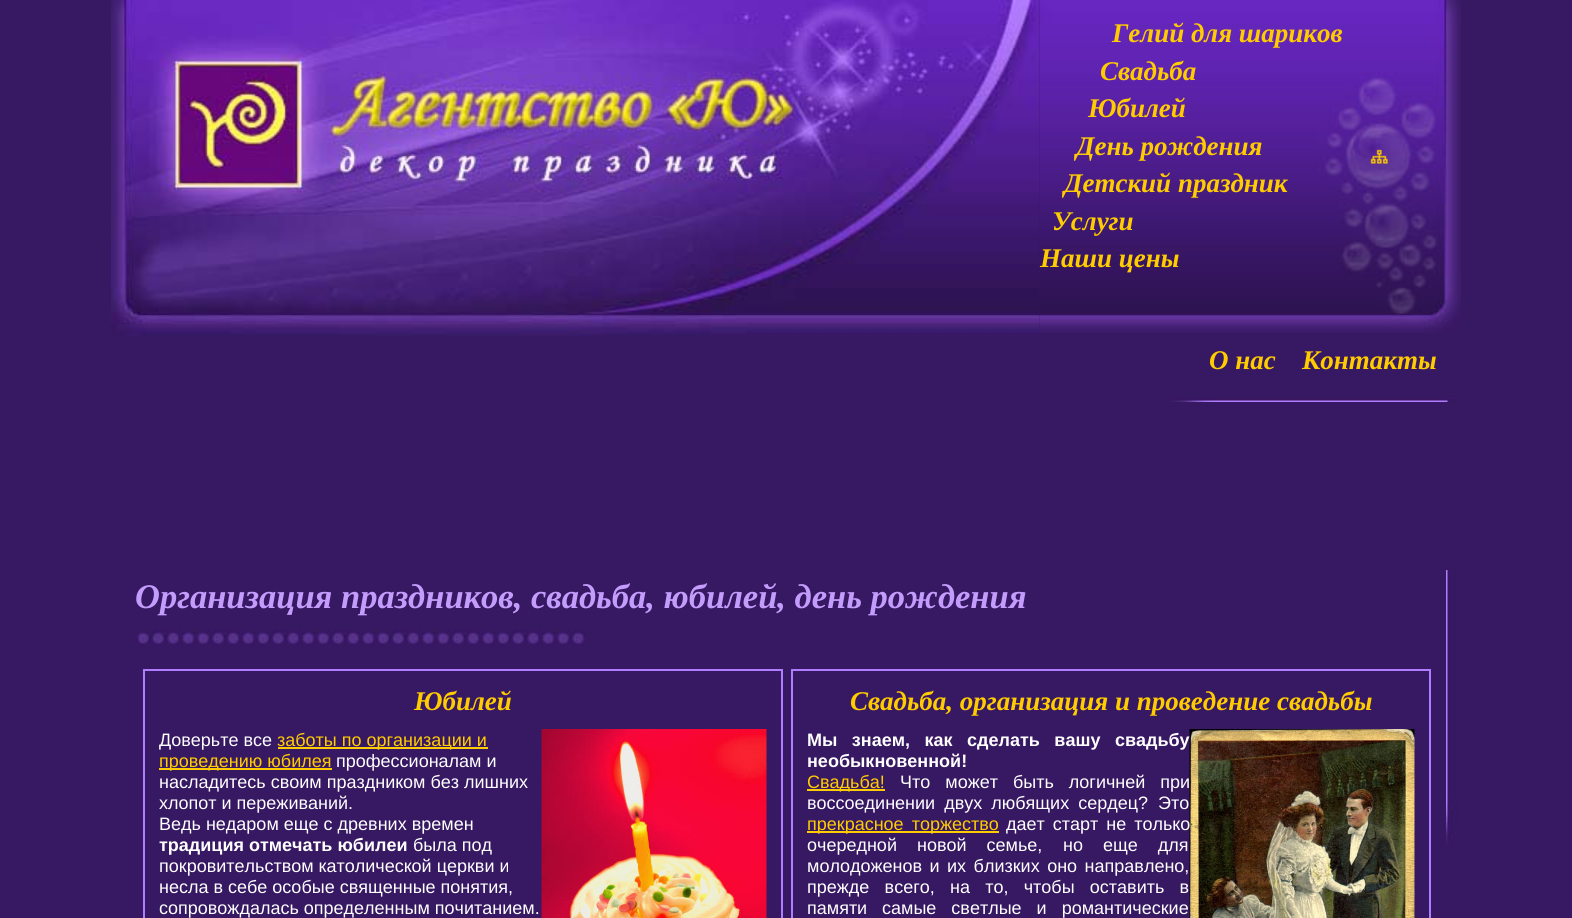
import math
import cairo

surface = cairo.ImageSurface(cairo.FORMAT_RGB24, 1572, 918)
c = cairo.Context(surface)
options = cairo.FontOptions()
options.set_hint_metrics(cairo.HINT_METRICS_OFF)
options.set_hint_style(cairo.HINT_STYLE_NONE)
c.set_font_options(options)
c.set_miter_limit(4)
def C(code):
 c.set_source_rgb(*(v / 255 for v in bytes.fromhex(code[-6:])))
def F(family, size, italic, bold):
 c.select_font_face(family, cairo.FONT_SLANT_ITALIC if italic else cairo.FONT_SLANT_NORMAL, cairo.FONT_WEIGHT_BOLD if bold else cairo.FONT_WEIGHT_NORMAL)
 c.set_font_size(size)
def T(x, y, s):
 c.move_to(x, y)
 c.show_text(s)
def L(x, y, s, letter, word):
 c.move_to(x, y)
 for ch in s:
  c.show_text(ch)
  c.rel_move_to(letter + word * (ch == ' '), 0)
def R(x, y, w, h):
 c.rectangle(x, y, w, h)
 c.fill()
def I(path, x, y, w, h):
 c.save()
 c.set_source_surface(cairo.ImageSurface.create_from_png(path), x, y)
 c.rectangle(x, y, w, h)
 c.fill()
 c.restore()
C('371863')
c.paint()
I('1.png',111,0,929,336)
I('2.png',1039,0,422,333)
F('Liberation Serif',27,1,1)
C('ffcc00')
T(1112,42,'Гелий для шариков')
T(1100,80,'Свадьба')
T(1088,117,'Юбилей')
T(1076,155,'День рождения')
T(1064,192,'Детский праздник')
T(1052,230,'Услуги')
T(1040,267,'Наши цены')
I('3.png',1370,149,18,15)
T(1209,369,'О нас')
T(1302,369,'Контакты')
I('4.png',1171,396,285,6)
I('5.png',135,630,451,16)
F('Liberation Serif',34.5,1,1)
C('c49cfc')
T(135,608,'Организация праздников, свадьба, юбилей, день рождения')
c.rectangle(144,670,638,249)
C('af7dff')
c.stroke()
F('Liberation Serif',27,1,1)
C('ffcc00')
T(414,710,'Юбилей')
F('Liberation Sans',18,0,0)
C('ffffff')
T(159,746,'Доверьте все')
C('ffcc00')
R(278,747,210,2)
T(277,746,'заботы по организации и')
R(159,768,173,2)
T(159,767,'проведению юбилея')
C('ffffff')
T(336,767,'профессионалам и')
T(159,788,'насладитесь своим праздником без лишних')
T(159,809,'хлопот и переживаний.')
T(159,830,'Ведь недаром еще с древних времен')
F('Liberation Sans',18,0,1)
T(159,851,'традиция отмечать юбилеи')
F('Liberation Sans',18,0,0)
T(413,851,'была под')
T(159,872,'покровительством католической церкви и')
T(159,893,'несла в себе особые священные понятия,')
T(159,914,'сопровождалась определенным почитанием.')
I('6.png',541,729,226,189)
c.rectangle(792,670,638,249)
C('af7dff')
c.stroke()
F('Liberation Serif',27,1,1)
C('ffcc00')
T(850,710,'Свадьба, организация и проведение свадьбы')
I('7.png',1189,729,226,189)
F('Liberation Sans',18,0,1)
C('ffffff')
L(807,746,'Мы знаем, как сделать вашу свадьбу',0,9.5)
T(807,767,'необыкновенной!')
C('ffcc00')
R(807,789,78,2)
F('Liberation Sans',18,0,0)
T(807,788,'Свадьба!')
C('ffffff')
L(900,788,'Что может быть логичней при',0,10)
L(807,809,'воссоединении двух любящих сердец?',0,4)
T(1158,809,'Это')
C('ffcc00')
R(807,831,192,2)
L(807,830,'прекрасное торжество',0,3)
C('ffffff')
L(1006,830,'дает старт не только',0,3)
L(807,851,'очередной новой семье,',0,15)
L(1063,851,'но еще для',0,15)
L(807,872,'молодоженов и их близких оно направлено,',0,2.5)
L(807,893,'прежде всего, на то, чтобы оставить в',0,10.25)
T(807,914,'памяти')
L(882,914,'самые светлые и романтические',0,10)
I('8.png',1446,570,12,275)
surface.write_to_png('o.png')
